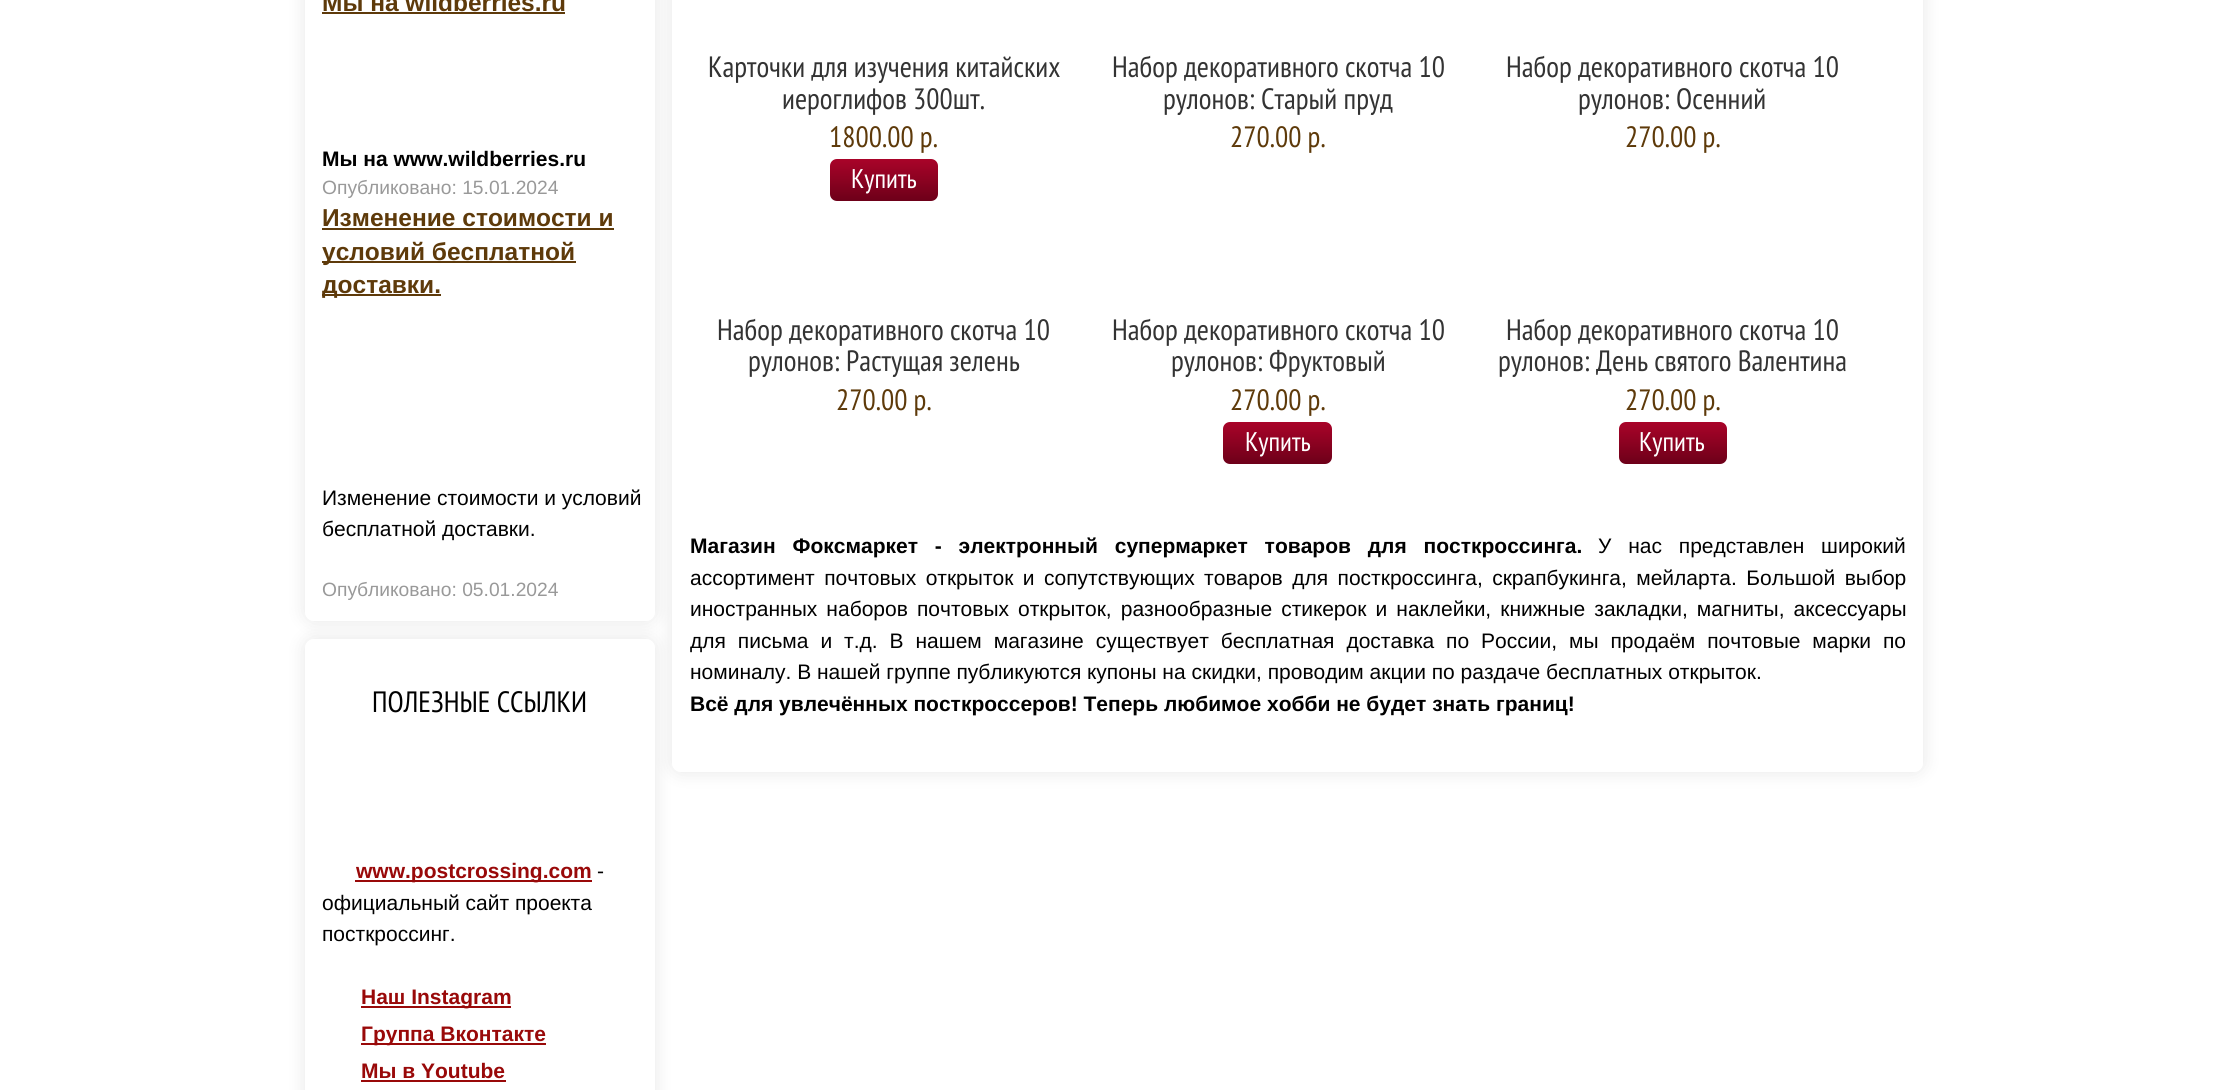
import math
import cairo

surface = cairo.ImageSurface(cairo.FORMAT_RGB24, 2235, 1090)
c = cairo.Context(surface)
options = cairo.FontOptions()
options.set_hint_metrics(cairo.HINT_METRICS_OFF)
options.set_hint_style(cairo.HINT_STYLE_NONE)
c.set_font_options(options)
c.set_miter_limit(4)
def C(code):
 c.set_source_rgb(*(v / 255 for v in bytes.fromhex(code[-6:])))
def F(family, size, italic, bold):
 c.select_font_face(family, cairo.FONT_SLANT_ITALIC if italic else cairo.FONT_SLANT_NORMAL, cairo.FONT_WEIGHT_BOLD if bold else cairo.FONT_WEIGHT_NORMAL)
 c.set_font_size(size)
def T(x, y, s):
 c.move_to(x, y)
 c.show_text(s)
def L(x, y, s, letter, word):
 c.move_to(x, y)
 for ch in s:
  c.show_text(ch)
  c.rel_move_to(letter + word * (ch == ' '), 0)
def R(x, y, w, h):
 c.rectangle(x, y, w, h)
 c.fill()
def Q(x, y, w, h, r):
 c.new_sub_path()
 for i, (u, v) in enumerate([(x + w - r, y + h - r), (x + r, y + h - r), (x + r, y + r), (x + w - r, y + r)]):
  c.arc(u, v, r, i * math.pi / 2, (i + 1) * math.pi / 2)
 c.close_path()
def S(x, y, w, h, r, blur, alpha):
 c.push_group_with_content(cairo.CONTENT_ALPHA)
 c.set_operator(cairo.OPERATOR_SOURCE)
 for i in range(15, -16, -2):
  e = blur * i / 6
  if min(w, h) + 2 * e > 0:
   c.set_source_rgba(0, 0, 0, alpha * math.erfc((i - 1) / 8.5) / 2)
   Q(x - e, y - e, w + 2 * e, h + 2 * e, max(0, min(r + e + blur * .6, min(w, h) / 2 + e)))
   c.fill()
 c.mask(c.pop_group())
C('ffffff')
c.paint()
c.save()
c.set_fill_rule(cairo.FILL_RULE_EVEN_ODD)
c.new_path()
c.move_to(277,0)
c.line_to(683,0)
c.line_to(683,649)
c.line_to(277,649)
c.close_path()
c.move_to(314,-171)
c.line_to(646,-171)
c.curve_to(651,-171,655,-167,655,-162)
c.line_to(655,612)
c.curve_to(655,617,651,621,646,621)
c.line_to(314,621)
c.curve_to(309,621,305,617,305,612)
c.line_to(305,-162)
c.curve_to(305,-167,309,-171,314,-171)
c.close_path()
c.clip()
C('000000')
S(305,-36,350,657,9,9,.1)
c.restore()
F('Liberation Sans',24.5,0,1)
C('5e3a0a')
T(322,11,'Мы на wildberries.ru')
R(322,12,243,2)
F('Liberation Sans',21,0,1)
C('000000')
T(322,166,'Мы на www.wildberries.ru')
F('Liberation Sans',19.25,0,0)
C('999999')
T(322,194,'Опубликовано: 15.01.2024')
F('Liberation Sans',24.5,0,1)
C('5e3a0a')
T(322,226,'Изменение стоимости и')
R(322,228,292,2)
R(322,261,254,2)
T(322,260,'условий бесплатной')
R(322,294,119,2)
T(322,293,'доставки.')
F('Liberation Sans',21,0,0)
C('000000')
T(322,505,'Изменение стоимости и условий')
T(322,536,'бесплатной доставки.')
F('Liberation Sans',19.25,0,0)
C('999999')
T(322,596,'Опубликовано: 05.01.2024')
c.save()
c.set_fill_rule(cairo.FILL_RULE_EVEN_ODD)
c.new_path()
c.move_to(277,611)
c.line_to(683,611)
c.line_to(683,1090)
c.line_to(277,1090)
c.close_path()
c.move_to(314,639)
c.line_to(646,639)
c.curve_to(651,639,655,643,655,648)
c.line_to(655,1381)
c.curve_to(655,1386,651,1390,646,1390)
c.line_to(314,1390)
c.curve_to(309,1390,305,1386,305,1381)
c.line_to(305,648)
c.curve_to(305,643,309,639,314,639)
c.close_path()
c.clip()
C('000000')
S(305,639,350,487,9,9,.1)
c.restore()
F('PT Sans Narrow',29.4,0,0)
C('000000')
T(372,712,'ПОЛЕЗНЫЕ ССЫЛКИ')
C('990909')
R(355,880,237,2)
F('Liberation Sans',21,0,1)
T(356,878,'www.postcrossing.com')
F('Liberation Sans',21,0,0)
C('000000')
T(597,878,'-')
T(322,910,'официальный сайт проекта')
T(322,941,'посткроссинг.')
C('990909')
R(361,1006,150,2)
F('Liberation Sans',21,0,1)
T(361,1004,'Наш Instagram')
R(361,1043,185,2)
T(361,1041,'Группа Вконтакте')
T(361,1078,'Мы в Youtube')
R(361,1080,145,2)
c.save()
c.set_fill_rule(cairo.FILL_RULE_EVEN_ODD)
c.new_path()
c.move_to(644,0)
c.line_to(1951,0)
c.line_to(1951,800)
c.line_to(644,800)
c.close_path()
c.move_to(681,-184)
c.line_to(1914,-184)
c.curve_to(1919,-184,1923,-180,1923,-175)
c.line_to(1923,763)
c.curve_to(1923,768,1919,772,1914,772)
c.line_to(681,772)
c.curve_to(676,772,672,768,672,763)
c.line_to(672,-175)
c.curve_to(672,-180,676,-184,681,-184)
c.close_path()
c.clip()
C('000000')
S(672,-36,1251,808,9,9,.1)
c.restore()
F('PT Sans Narrow',29.4,0,0)
C('333333')
T(708,77,'Карточки для изучения китайских')
T(782,109,'иероглифов 300шт.')
C('5e3a0a')
T(829,147,'1800.00 р.')
gradient = cairo.LinearGradient(884,159,884,201)
gradient.add_color_stop_rgba(0,0.663,0.012,0.161,1)
gradient.add_color_stop_rgba(.44,0.561,0.008,0.133,1)
gradient.add_color_stop_rgba(1,0.427,0,0.098,1)
c.set_source(gradient)
Q(830,159,108,42,7)
c.fill()
F('PT Sans Narrow',27,0,0)
C('ffffff')
T(851,188,'Купить')
F('PT Sans Narrow',29.4,0,0)
C('333333')
T(1112,77,'Набор декоративного скотча 10')
T(1163,109,'рулонов: Старый пруд')
C('5e3a0a')
T(1230,147,'270.00 р.')
C('333333')
T(1506,77,'Набор декоративного скотча 10')
T(1578,109,'рулонов: Осенний')
C('5e3a0a')
T(1625,147,'270.00 р.')
C('333333')
T(717,340,'Набор декоративного скотча 10')
T(748,371,'рулонов: Растущая зелень')
C('5e3a0a')
T(836,410,'270.00 р.')
C('333333')
T(1112,340,'Набор декоративного скотча 10')
T(1171,371,'рулонов: Фруктовый')
C('5e3a0a')
T(1230,410,'270.00 р.')
gradient = cairo.LinearGradient(1278,422,1278,464)
gradient.add_color_stop_rgba(0,0.663,0.012,0.161,1)
gradient.add_color_stop_rgba(.44,0.561,0.008,0.133,1)
gradient.add_color_stop_rgba(1,0.427,0,0.098,1)
c.set_source(gradient)
Q(1223,422,109,42,7)
c.fill()
F('PT Sans Narrow',27,0,0)
C('ffffff')
T(1245,451,'Купить')
F('PT Sans Narrow',29.4,0,0)
C('333333')
T(1506,340,'Набор декоративного скотча 10')
T(1498,371,'рулонов: День святого Валентина')
C('5e3a0a')
T(1625,410,'270.00 р.')
gradient = cairo.LinearGradient(1673,422,1673,464)
gradient.add_color_stop_rgba(0,0.663,0.012,0.161,1)
gradient.add_color_stop_rgba(.44,0.561,0.008,0.133,1)
gradient.add_color_stop_rgba(1,0.427,0,0.098,1)
c.set_source(gradient)
Q(1619,422,108,42,7)
c.fill()
F('PT Sans Narrow',27,0,0)
C('ffffff')
T(1639,451,'Купить')
F('Liberation Sans',21,0,1)
C('000000')
L(690,553,'Магазин Фоксмаркет - электронный супермаркет товаров для посткроссинга.',0,11)
F('Liberation Sans',21,0,0)
L(1598,553,'У нас представлен широкий',0,11)
L(690,585,'ассортимент почтовых открыток и сопутствующих товаров для посткроссинга, скрапбукинга, мейларта. Большой выбор',0,3.6)
L(690,616,'иностранных наборов почтовых открыток, разнообразные стикерок и наклейки, книжные закладки, магниты, аксессуары',0,3.25)
c.save()
c.rectangle(690,0,1216,754)
c.clip()
L(690,648,'для письма и т.д. В нашем магазине существует бесплатная доставка по России, мы продаём почтовые марки по',0,6.1)
c.restore()
T(690,679,'номиналу. В нашей группе публикуются купоны на скидки, проводим акции по раздаче бесплатных открыток.')
F('Liberation Sans',21,0,1)
T(690,711,'Всё для увлечённых посткроссеров! Теперь любимое хобби не будет знать границ!')
surface.write_to_png('o.png')
